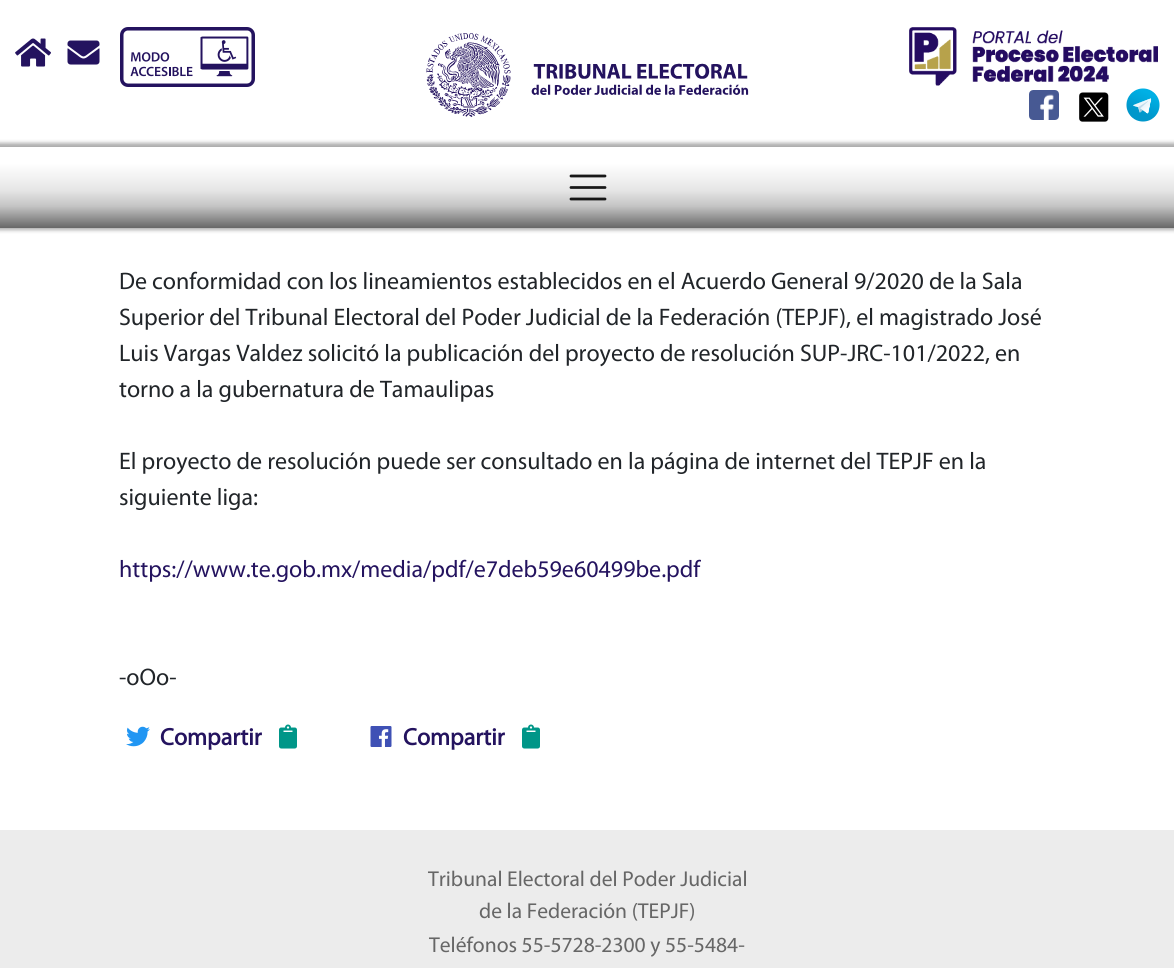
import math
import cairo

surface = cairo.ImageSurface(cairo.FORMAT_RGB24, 1174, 968)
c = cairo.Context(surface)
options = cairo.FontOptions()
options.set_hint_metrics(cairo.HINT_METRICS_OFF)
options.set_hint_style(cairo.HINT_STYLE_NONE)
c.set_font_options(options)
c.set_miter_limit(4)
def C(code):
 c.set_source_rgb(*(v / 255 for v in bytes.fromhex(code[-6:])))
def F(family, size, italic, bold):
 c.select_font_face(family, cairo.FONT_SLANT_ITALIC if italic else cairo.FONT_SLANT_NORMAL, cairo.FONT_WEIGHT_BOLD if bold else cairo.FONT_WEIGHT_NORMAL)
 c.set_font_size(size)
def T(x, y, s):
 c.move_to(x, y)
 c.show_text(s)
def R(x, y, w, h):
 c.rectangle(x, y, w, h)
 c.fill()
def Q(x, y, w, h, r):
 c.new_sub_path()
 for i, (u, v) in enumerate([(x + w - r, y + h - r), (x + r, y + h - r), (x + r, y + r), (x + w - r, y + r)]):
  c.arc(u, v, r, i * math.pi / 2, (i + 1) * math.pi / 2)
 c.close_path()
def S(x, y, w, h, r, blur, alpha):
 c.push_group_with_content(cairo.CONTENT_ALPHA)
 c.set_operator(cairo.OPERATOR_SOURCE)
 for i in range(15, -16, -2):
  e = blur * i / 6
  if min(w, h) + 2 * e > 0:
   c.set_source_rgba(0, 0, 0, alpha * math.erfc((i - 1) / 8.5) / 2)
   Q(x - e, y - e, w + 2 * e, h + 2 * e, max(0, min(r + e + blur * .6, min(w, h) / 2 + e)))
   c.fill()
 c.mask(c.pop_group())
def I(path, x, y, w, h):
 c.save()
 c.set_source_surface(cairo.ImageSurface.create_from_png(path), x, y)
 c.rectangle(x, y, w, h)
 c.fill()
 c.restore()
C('ffffff')
c.paint()
I('1.png',15,38,36,29)
I('2.png',67,40,33,25)
I('3.png',120,27,135,60)
I('4.png',426,33,323,84)
I('5.png',909,27,249,59)
I('6.png',1029,90,30,30)
I('7.png',1079,92,30,30)
I('8.png',1126,88,34,34)
C('000000')
S(-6,143,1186,87,0,2,.33)
gradient = cairo.LinearGradient(587,147,587,228)
gradient.add_color_stop_rgba(.2,1,1,1,1)
gradient.add_color_stop_rgba(.53,0.902,0.902,0.902,1)
gradient.add_color_stop_rgba(.73,0.769,0.769,0.769,1)
gradient.add_color_stop_rgba(1,0.404,0.404,0.404,1)
c.set_source(gradient)
R(0,147,1174,81)
c.new_path()
c.move_to(571,176)
c.line_to(605,176)
c.move_to(571,187.5)
c.line_to(605,187.5)
c.move_to(571,199)
c.line_to(605,199)
c.set_source_rgba(0,0,0,0.9)
c.set_line_width(2.8)
c.set_line_cap(cairo.LINE_CAP_ROUND)
c.stroke()
F('Myriad',24,0,0)
C('212529')
T(119,289,'De conformidad con los lineamientos establecidos en el Acuerdo General 9/2020 de la Sala')
T(119,325,'Superior del Tribunal Electoral del Poder Judicial de la Federación (TEPJF), el magistrado José')
T(119,361,'Luis Vargas Valdez solicitó la publicación del proyecto de resolución SUP-JRC-101/2022, en')
T(119,397,'torno a la gubernatura de Tamaulipas')
T(119,469,'El proyecto de resolución puede ser consultado en la página de internet del TEPJF en la')
T(119,505,'siguiente liga:')
C('24135f')
T(119,577,'https://www.te.gob.mx/media/pdf/e7deb59e60499be.pdf')
C('212529')
T(119,685,'-oOo-')
I('9.png',126,726,24,21)
F('Myriad',24,0,1)
C('24135f')
T(160,745,'Compartir')
I('10.png',279,724,18,25)
I('11.png',370,726,22,21)
T(403,745,'Compartir')
I('10.png',522,724,18,25)
C('ececec')
R(0,830,1174,138)
F('Myriad',21.6,0,0)
C('666666')
T(428,886,'Tribunal Electoral del Poder Judicial')
T(479,918,'de la Federación (TEPJF)')
T(429,952,'Teléfonos 55-5728-2300 y 55-5484-')
surface.write_to_png('o.png')
